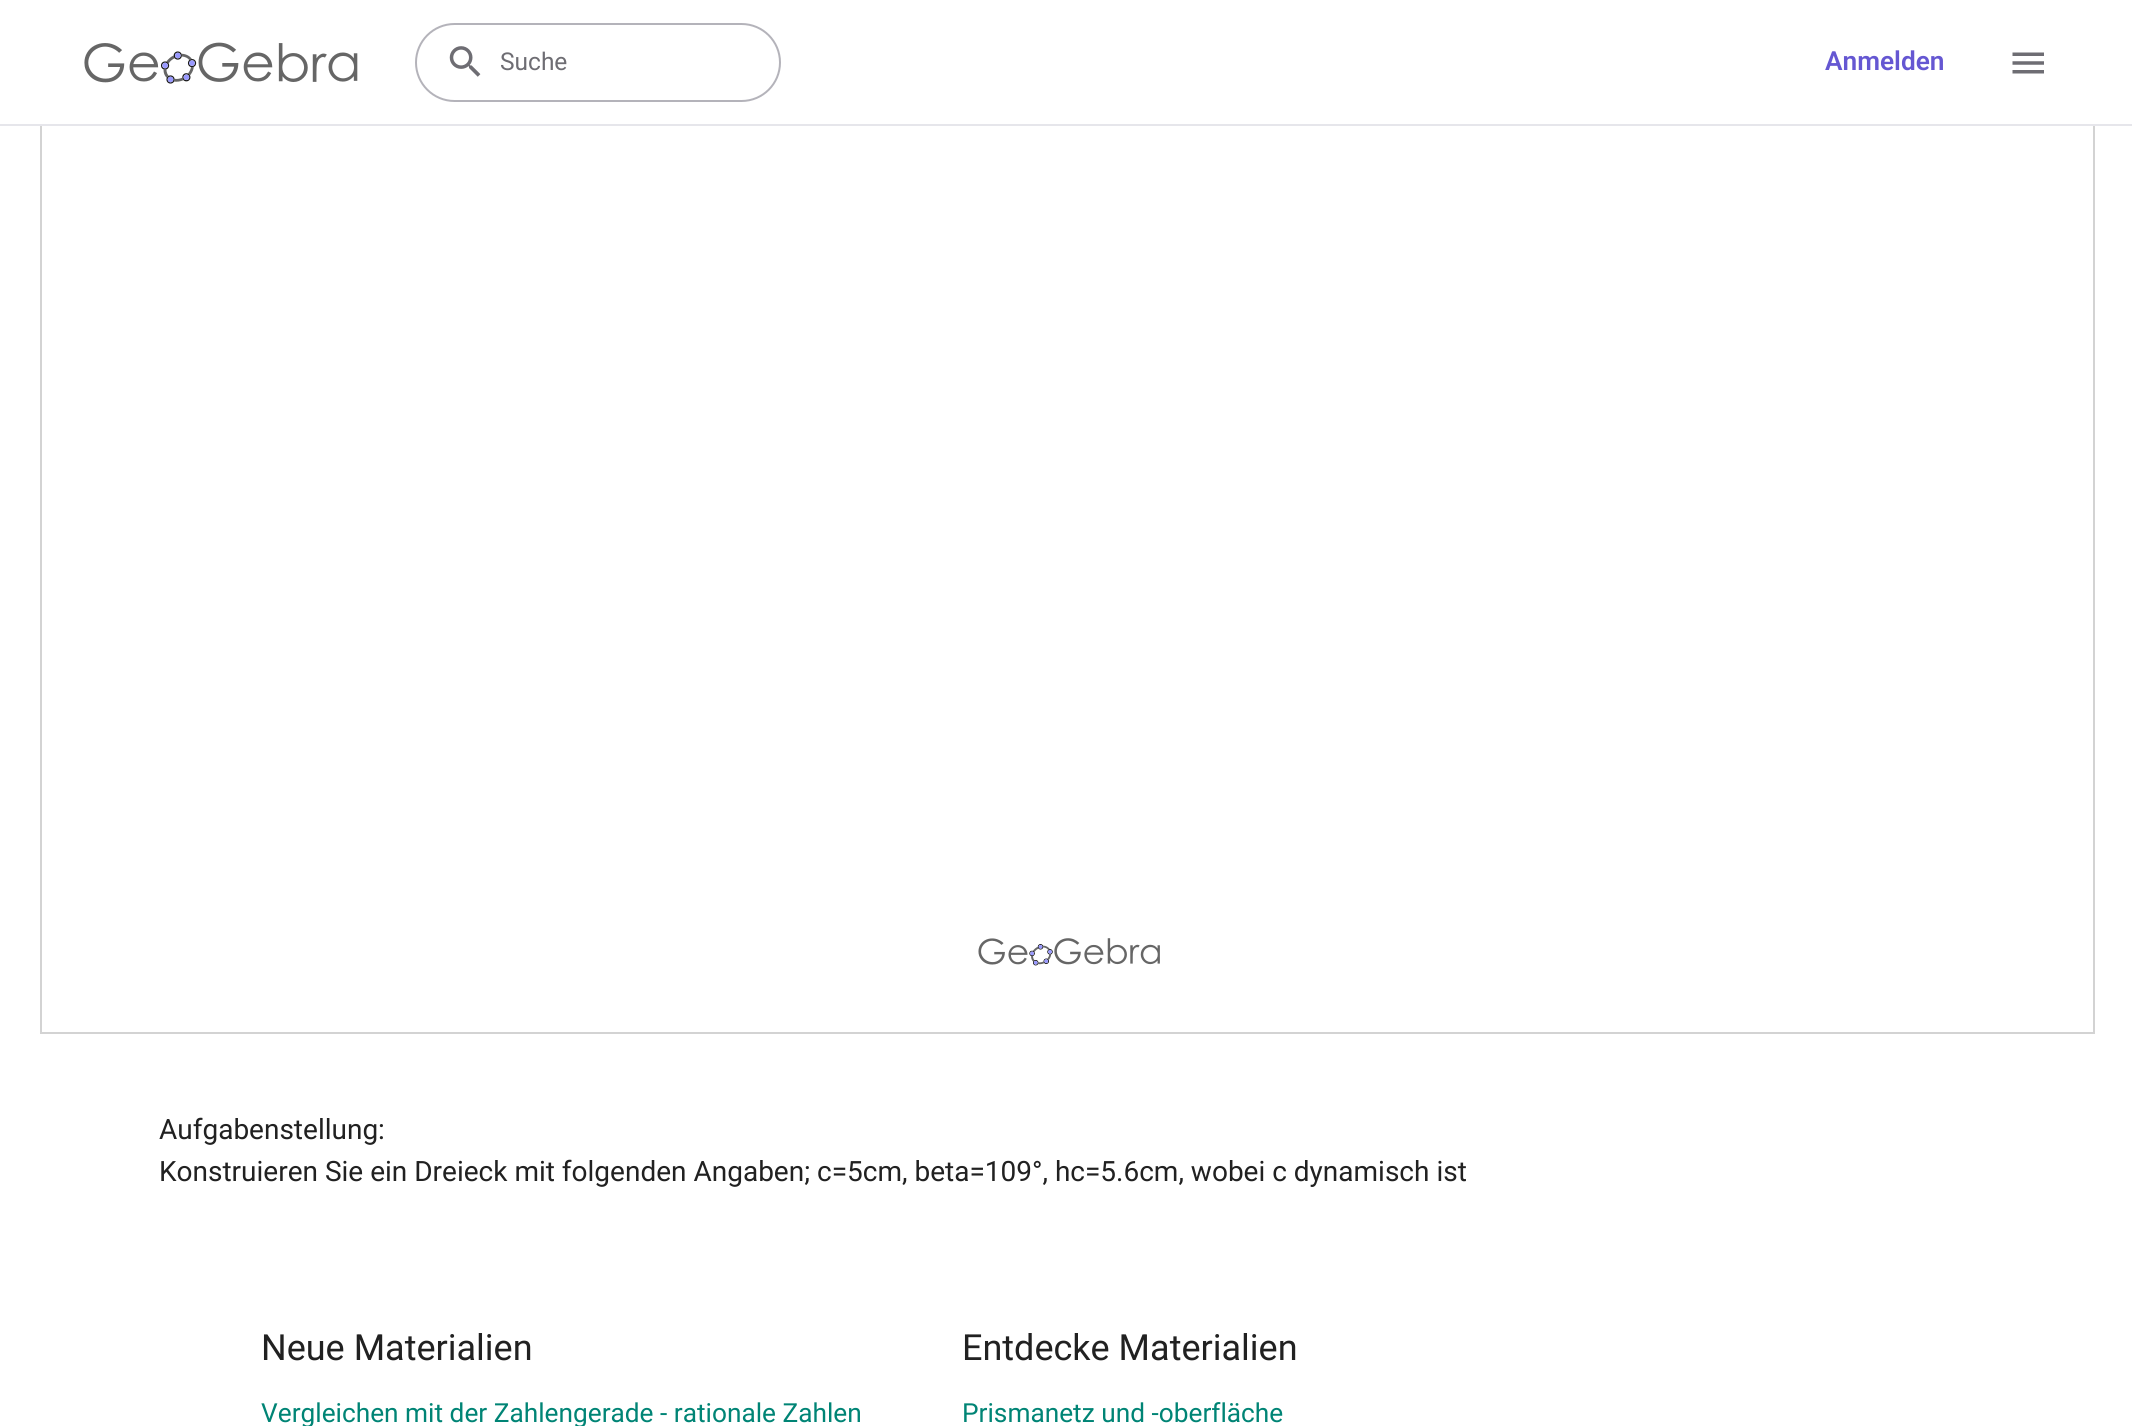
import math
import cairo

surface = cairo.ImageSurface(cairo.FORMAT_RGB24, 2132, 1426)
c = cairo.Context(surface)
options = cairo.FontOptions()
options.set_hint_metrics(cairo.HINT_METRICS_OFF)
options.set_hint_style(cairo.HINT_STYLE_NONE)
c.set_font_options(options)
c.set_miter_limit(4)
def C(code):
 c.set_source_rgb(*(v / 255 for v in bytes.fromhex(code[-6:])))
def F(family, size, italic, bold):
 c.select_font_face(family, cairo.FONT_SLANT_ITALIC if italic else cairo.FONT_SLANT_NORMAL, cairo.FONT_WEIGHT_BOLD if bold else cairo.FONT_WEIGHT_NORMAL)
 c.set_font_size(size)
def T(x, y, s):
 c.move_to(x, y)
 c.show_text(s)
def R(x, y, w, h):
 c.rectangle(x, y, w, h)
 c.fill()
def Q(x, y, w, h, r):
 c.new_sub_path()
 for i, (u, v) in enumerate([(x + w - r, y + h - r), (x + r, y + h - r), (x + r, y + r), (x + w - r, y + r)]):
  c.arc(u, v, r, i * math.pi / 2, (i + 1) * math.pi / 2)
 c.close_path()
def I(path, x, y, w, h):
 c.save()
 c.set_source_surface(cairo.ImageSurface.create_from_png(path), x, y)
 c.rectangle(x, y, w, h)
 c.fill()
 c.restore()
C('ffffff')
c.paint()
I('4.png',978,938,182,28)
c.rectangle(41,29,2053,1004)
C('d3d3d3')
c.stroke()
C('ffffff')
R(40,28,2055,96)
C('e6e6eb')
R(0,124,2132,2)
I('1.png',84,42,274,42)
Q(416,24,364,77,38.5)
C('b4b3ba')
c.stroke()
I('2.png',449,46,32,31)
F('Roboto',24.5,0,0)
C('6e6d73')
T(500,70,'Suche')
F('Roboto SemiBold',26.25,0,0)
C('6557d2')
T(1825,70,'Anmelden')
I('3.png',2012,52,32,22)
F('Roboto',28,0,0)
C('212121')
T(159,1139,'Aufgabenstellung:')
T(159,1181,'Konstruieren Sie ein Dreieck mit folgenden Angaben; c=5cm, beta=109°, hc=5.6cm, wobei c dynamisch ist')
F('Roboto',36,0,0)
T(261,1360,'Neue Materialien')
F('Roboto',26.25,0,0)
C('008475')
T(261,1422,'Vergleichen mit der Zahlengerade - rationale Zahlen')
F('Roboto',36,0,0)
C('212121')
T(962,1360,'Entdecke Materialien')
F('Roboto',26.25,0,0)
C('008475')
T(962,1422,'Prismanetz und -oberfläche')
surface.write_to_png('o.png')
